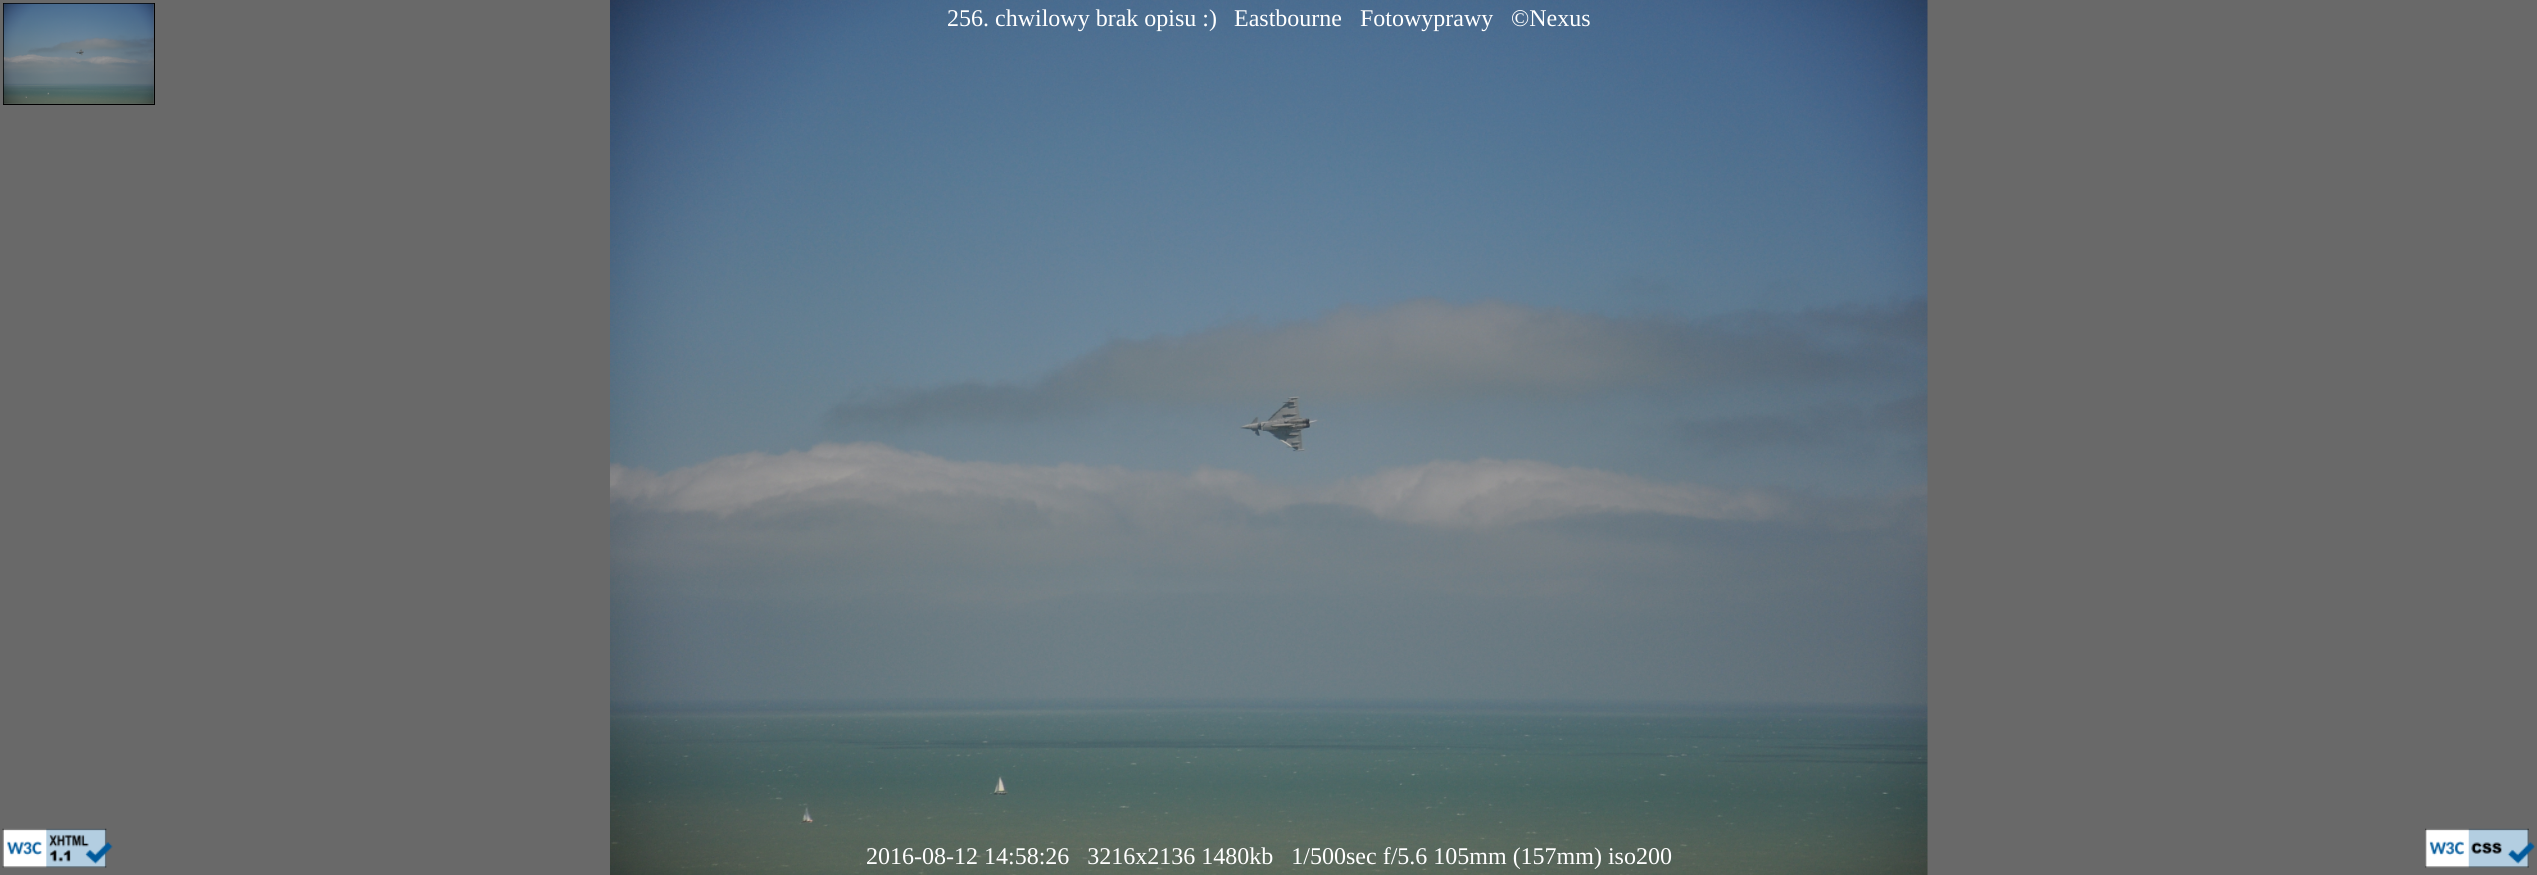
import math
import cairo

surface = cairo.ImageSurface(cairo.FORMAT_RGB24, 2537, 875)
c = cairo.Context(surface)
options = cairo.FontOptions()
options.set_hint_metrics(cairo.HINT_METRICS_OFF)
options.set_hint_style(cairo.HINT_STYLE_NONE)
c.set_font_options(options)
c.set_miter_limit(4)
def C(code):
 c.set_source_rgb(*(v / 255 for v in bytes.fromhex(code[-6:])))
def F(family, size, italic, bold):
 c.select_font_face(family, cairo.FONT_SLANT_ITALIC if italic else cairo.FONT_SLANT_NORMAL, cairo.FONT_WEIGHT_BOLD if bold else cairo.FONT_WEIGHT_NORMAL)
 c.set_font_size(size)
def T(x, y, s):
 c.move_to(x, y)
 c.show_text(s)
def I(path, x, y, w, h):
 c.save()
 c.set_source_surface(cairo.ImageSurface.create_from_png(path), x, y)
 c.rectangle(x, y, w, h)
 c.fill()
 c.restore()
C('696969')
c.paint()
I('1.png',610,0,1318,875)
c.rectangle(3.5,3.5,151,101)
C('000000')
c.set_line_width(1)
c.stroke()
I('2.png',3,3,151,101)
F('Liberation Serif',24,0,0)
C('ffffff')
T(947,26,'256. chwilowy brak opisu :)')
T(1234,26,'Eastbourne')
T(1360,26,'Fotowyprawy')
T(1511,26,'©Nexus')
I('3.png',2,828,111,40)
T(866,864,'2016-08-12 14:58:26   3216x2136 1480kb   1/500sec f/5.6 105mm (157mm) iso200')
I('4.png',2425,828,110,40)
surface.write_to_png('o.png')
